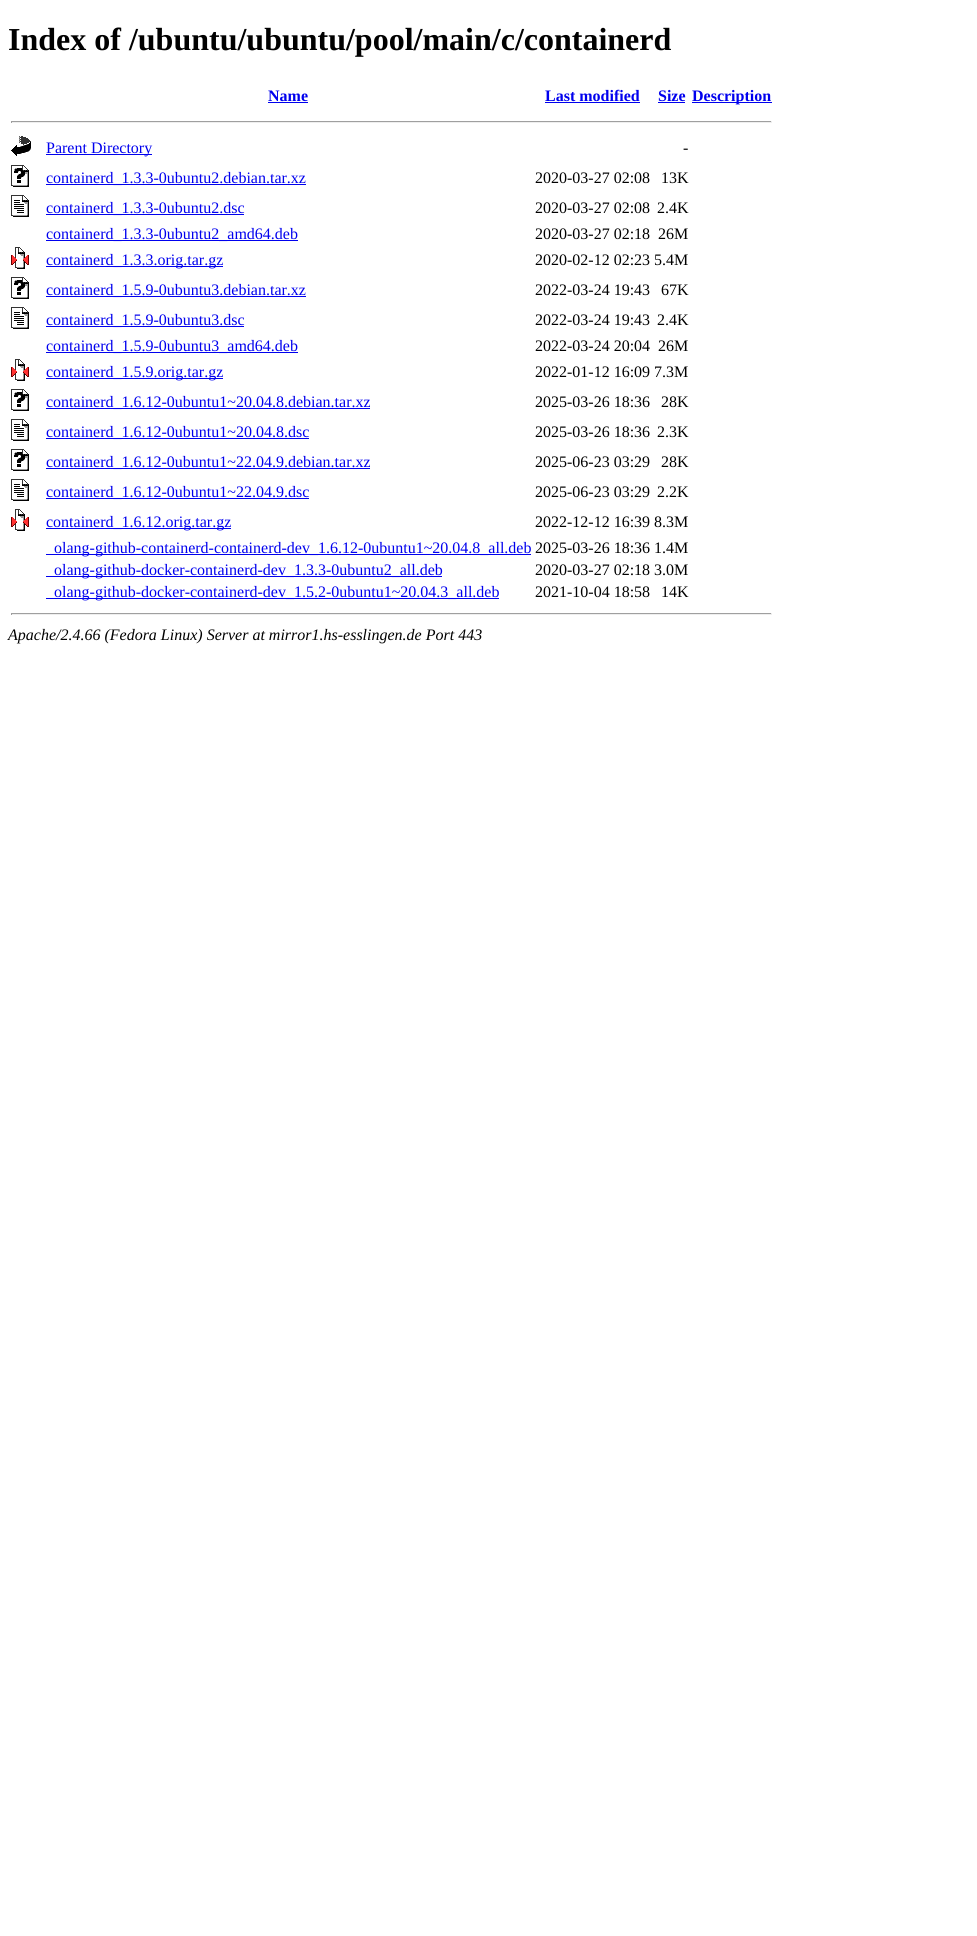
import math
import cairo

surface = cairo.ImageSurface(cairo.FORMAT_RGB24, 977, 1936)
c = cairo.Context(surface)
options = cairo.FontOptions()
options.set_hint_metrics(cairo.HINT_METRICS_OFF)
options.set_hint_style(cairo.HINT_STYLE_NONE)
c.set_font_options(options)
c.set_miter_limit(4)
def C(code):
 c.set_source_rgb(*(v / 255 for v in bytes.fromhex(code[-6:])))
def F(family, size, italic, bold):
 c.select_font_face(family, cairo.FONT_SLANT_ITALIC if italic else cairo.FONT_SLANT_NORMAL, cairo.FONT_WEIGHT_BOLD if bold else cairo.FONT_WEIGHT_NORMAL)
 c.set_font_size(size)
def T(x, y, s):
 c.move_to(x, y)
 c.show_text(s)
def R(x, y, w, h):
 c.rectangle(x, y, w, h)
 c.fill()
def I(path, x, y, w, h):
 c.save()
 c.set_source_surface(cairo.ImageSurface.create_from_png(path), x, y)
 c.rectangle(x, y, w, h)
 c.fill()
 c.restore()
C('ffffff')
c.paint()
F('Liberation Serif',32,0,1)
C('000000')
T(8,50,'Index of /ubuntu/ubuntu/pool/main/c/containerd')
F('Liberation Serif',16,0,1)
C('0000ee')
T(268,101,'Name')
R(268,102,40,1)
T(545,101,'Last modified')
R(545,102,95,1)
T(658,101,'Size')
R(658,102,27,1)
R(692,102,80,1)
T(692,101,'Description')
C('9f9f9f')
R(11,121,761,1)
C('eeeeee')
R(771,121,1,2)
R(11,122,761,1)
C('9f9f9f')
R(11,121,1,2)
I('1.png',11,136,20,20)
C('0000ee')
R(46,154,106,1)
F('Liberation Serif',16,0,0)
T(46,153,'Parent Directory')
C('000000')
T(683,153,'-')
I('2.png',11,165,18,22)
C('0000ee')
R(46,184,260,1)
T(46,183,'containerd_1.3.3-0ubuntu2.debian.tar.xz')
C('000000')
T(535,183,'2020-03-27 02:08')
T(661,183,'13K')
I('3.png',11,195,18,22)
C('0000ee')
R(46,214,198,1)
T(46,213,'containerd_1.3.3-0ubuntu2.dsc')
C('000000')
T(535,213,'2020-03-27 02:08')
T(657,213,'2.4K')
C('0000ee')
R(46,240,252,1)
T(46,239,'containerd_1.3.3-0ubuntu2_amd64.deb')
C('000000')
T(535,239,'2020-03-27 02:18')
T(658,239,'26M')
I('4.png',11,247,18,22)
C('0000ee')
R(46,266,177,1)
T(46,265,'containerd_1.3.3.orig.tar.gz')
C('000000')
T(535,265,'2020-02-12 02:23 5.4M')
I('2.png',11,277,18,22)
C('0000ee')
R(46,296,260,1)
T(46,295,'containerd_1.5.9-0ubuntu3.debian.tar.xz')
C('000000')
T(535,295,'2022-03-24 19:43')
T(661,295,'67K')
I('3.png',11,307,18,22)
C('0000ee')
R(46,326,198,1)
T(46,325,'containerd_1.5.9-0ubuntu3.dsc')
C('000000')
T(535,325,'2022-03-24 19:43')
T(657,325,'2.4K')
C('0000ee')
R(46,352,252,1)
T(46,351,'containerd_1.5.9-0ubuntu3_amd64.deb')
C('000000')
T(535,351,'2022-03-24 20:04')
T(658,351,'26M')
I('4.png',11,359,18,22)
C('0000ee')
R(46,378,177,1)
T(46,377,'containerd_1.5.9.orig.tar.gz')
C('000000')
T(535,377,'2022-01-12 16:09 7.3M')
I('2.png',11,389,18,22)
C('0000ee')
R(46,408,324,1)
T(46,407,'containerd_1.6.12-0ubuntu1~20.04.8.debian.tar.xz')
C('000000')
T(535,407,'2025-03-26 18:36')
T(661,407,'28K')
I('3.png',11,419,18,22)
C('0000ee')
R(46,438,263,1)
T(46,437,'containerd_1.6.12-0ubuntu1~20.04.8.dsc')
C('000000')
T(535,437,'2025-03-26 18:36')
T(657,437,'2.3K')
I('2.png',11,449,18,22)
C('0000ee')
R(46,468,324,1)
T(46,467,'containerd_1.6.12-0ubuntu1~22.04.9.debian.tar.xz')
C('000000')
T(535,467,'2025-06-23 03:29')
T(661,467,'28K')
I('3.png',11,479,18,22)
C('0000ee')
R(46,498,263,1)
T(46,497,'containerd_1.6.12-0ubuntu1~22.04.9.dsc')
C('000000')
T(535,497,'2025-06-23 03:29')
T(657,497,'2.2K')
I('4.png',11,509,18,22)
C('0000ee')
R(46,528,185,1)
T(46,527,'containerd_1.6.12.orig.tar.gz')
C('000000')
T(535,527,'2022-12-12 16:39 8.3M')
C('0000ee')
R(46,554,485,1)
T(54,553,'olang-github-containerd-containerd-dev_1.6.12-0ubuntu1~20.04.8_all.deb')
C('000000')
T(535,553,'2025-03-26 18:36 1.4M')
C('0000ee')
R(46,576,396,1)
T(54,575,'olang-github-docker-containerd-dev_1.3.3-0ubuntu2_all.deb')
C('000000')
T(535,575,'2020-03-27 02:18 3.0M')
C('0000ee')
R(46,598,453,1)
T(54,597,'olang-github-docker-containerd-dev_1.5.2-0ubuntu1~20.04.3_all.deb')
C('000000')
T(535,597,'2021-10-04 18:58')
T(661,597,'14K')
C('9f9f9f')
R(11,613,761,1)
C('eeeeee')
R(771,613,1,2)
R(11,614,761,1)
C('9f9f9f')
R(11,613,1,2)
F('Liberation Serif',16,1,0)
C('000000')
T(8,640,'Apache/2.4.66 (Fedora Linux) Server at mirror1.hs-esslingen.de Port 443')
surface.write_to_png('o.png')
